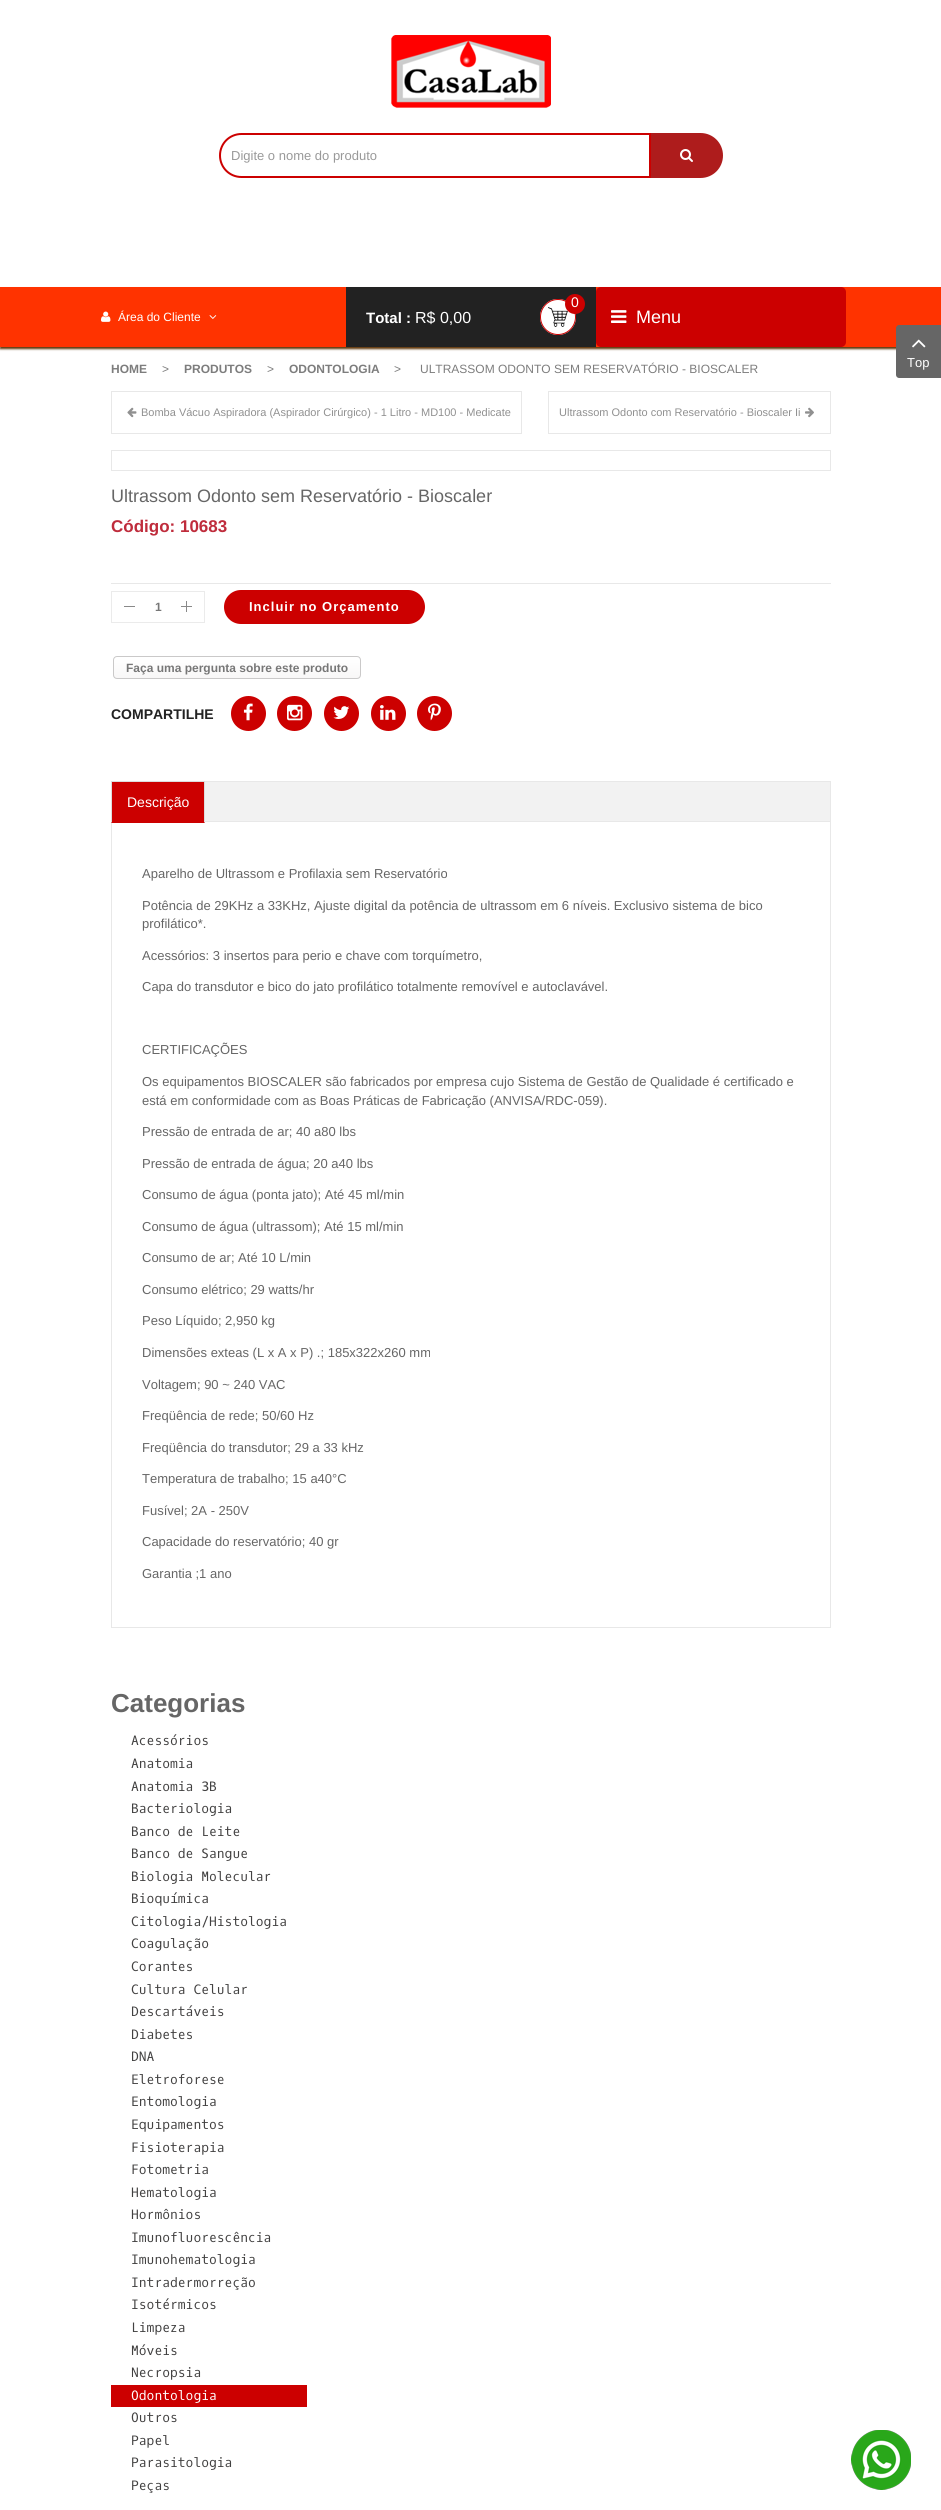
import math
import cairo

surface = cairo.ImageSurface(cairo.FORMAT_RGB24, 941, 2510)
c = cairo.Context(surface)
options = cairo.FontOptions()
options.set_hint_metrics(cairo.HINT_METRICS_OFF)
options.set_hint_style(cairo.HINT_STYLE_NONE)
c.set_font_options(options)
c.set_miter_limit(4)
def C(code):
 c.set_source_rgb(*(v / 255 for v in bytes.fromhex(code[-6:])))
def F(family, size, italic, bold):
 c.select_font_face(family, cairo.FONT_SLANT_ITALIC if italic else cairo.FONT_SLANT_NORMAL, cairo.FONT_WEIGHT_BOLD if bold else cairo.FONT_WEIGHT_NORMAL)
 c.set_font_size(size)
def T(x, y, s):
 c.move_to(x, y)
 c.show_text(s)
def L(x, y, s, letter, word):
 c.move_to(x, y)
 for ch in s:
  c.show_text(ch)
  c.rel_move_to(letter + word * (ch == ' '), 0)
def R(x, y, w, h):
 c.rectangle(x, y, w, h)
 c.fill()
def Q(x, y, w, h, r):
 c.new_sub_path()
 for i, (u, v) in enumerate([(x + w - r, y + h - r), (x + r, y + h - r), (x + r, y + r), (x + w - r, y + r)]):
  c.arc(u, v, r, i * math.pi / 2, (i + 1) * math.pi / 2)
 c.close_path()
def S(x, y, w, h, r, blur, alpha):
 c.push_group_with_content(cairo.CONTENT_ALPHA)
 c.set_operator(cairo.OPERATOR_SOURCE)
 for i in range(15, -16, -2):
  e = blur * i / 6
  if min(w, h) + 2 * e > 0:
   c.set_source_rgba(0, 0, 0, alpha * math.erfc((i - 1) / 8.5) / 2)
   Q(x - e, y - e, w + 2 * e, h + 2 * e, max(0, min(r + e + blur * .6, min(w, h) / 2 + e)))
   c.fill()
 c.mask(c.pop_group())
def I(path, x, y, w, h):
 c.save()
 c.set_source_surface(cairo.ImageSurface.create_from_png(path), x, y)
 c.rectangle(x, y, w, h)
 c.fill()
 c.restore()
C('ffffff')
c.paint()
I('1.png',391,35,160,73)
C('ae1c1c')
c.new_path()
c.move_to(650,133)
c.line_to(700.5,133)
c.curve_to(713,133,723,143,723,155.5)
c.curve_to(723,168,713,178,700.5,178)
c.line_to(650,178)
c.close_path()
c.fill()
C('ffffff')
c.new_path()
c.move_to(241.5,134)
c.line_to(650,134)
c.line_to(650,177)
c.line_to(241.5,177)
c.curve_to(229.5,177,220,167.5,220,155.5)
c.curve_to(220,143.5,229.5,134,241.5,134)
c.close_path()
c.fill_preserve()
C('cc0000')
c.stroke()
F('Liberation Sans',13,0,0)
C('999999')
T(231,160,'Digite o nome do produto')
I('2.png',680,149,13,13)
C('5f3609')
S(0,289,941,60,0,1,1)
C('ff3300')
R(0,287,941,60)
I('3.png',101,311,10,11)
F('Liberation Sans',12,0,0)
C('ffffff')
T(118,321,'Área do Cliente')
I('4.png',209,315,8,4)
C('222222')
R(346,287,250,60)
C('ffffff')
c.arc(558,317,18,0,2 * math.pi)
c.fill()
I('5.png',548,307,20,20)
c.arc(558,317,17.5,0,2 * math.pi)
C('cc0000')
c.set_line_width(1)
c.stroke()
c.arc(575,304,10,0,2 * math.pi)
c.fill()
F('Liberation Sans',14,0,0)
C('ffffff')
T(571,307,'0')
F('Liberation Sans',15,0,1)
T(366,323,'Total :')
F('Liberation Sans',16,0,0)
T(415,323,'R$ 0,00')
C('cc0000')
Q(596,287,250,60,5)
c.fill()
I('6.png',611,310,16,13)
F('Liberation Sans',18,0,0)
C('ffffff')
T(636,323,'Menu')
F('Liberation Sans',12,0,1)
C('7d7d7d')
T(111,373,'HOME')
F('Liberation Sans',12,0,0)
T(162,373,'>')
F('Liberation Sans',12,0,1)
T(184,373,'PRODUTOS')
F('Liberation Sans',12,0,0)
T(267,373,'>')
F('Liberation Sans',12,0,1)
T(289,373,'ODONTOLOGIA')
F('Liberation Sans',12,0,0)
T(394,373,'>')
T(420,373,'ULTRASSOM ODONTO SEM RESERVATÓRIO - BIOSCALER')
c.rectangle(111.5,391.5,410,42)
C('e8e8e8')
c.stroke()
I('7.png',127,407,10,11)
F('Liberation Sans',11,0,0)
C('909090')
T(141,416,'Bomba Vácuo Aspiradora (Aspirador Cirúrgico) - 1 Litro - MD100 - Medicate')
c.rectangle(548.5,391.5,282,42)
C('e8e8e8')
c.stroke()
C('909090')
T(559,416,'Ultrassom Odonto com Reservatório - Bioscaler Ii')
I('8.png',805,407,9,11)
c.rectangle(111.5,450.5,719,20)
C('e8e8e8')
c.stroke()
F('Liberation Sans',18,0,0)
C('666666')
T(111,502,'Ultrassom Odonto sem Reservatório - Bioscaler')
F('Liberation Sans',17,0,1)
C('bf2c3c')
T(111,532,'Código: 10683')
C('e8e8e8')
R(111,583,720,1)
c.rectangle(111.5,591.5,93,31)
C('ebebeb')
c.stroke()
C('898989')
R(124,606,11,1)
F('Liberation Sans',12,0,1)
C('777777')
T(155,611,'1')
I('9.png',181,601,11,11)
C('cc0000')
Q(224,590,201,34,17)
c.fill()
F('Liberation Sans',13,0,1)
C('ffffff')
L(249,611,'Incluir no Orçamento',1,0)
I('10.png',113,657,248,22)
Q(113.5,656.5,247,22,3.5)
C('cac9c9')
c.stroke()
F('Liberation Sans',12,0,1)
C('777777')
T(126,672,'Faça uma pergunta sobre este produto')
F('Liberation Sans',14,0,1)
C('222222')
T(111,719,'COMPARTILHE')
C('cc0000')
c.new_path()
c.arc(248.5,713.5,17.5,0,2 * math.pi)
c.fill()
I('11.png',243,703,10,18)
c.arc(294.5,713.5,17.5,0,2 * math.pi)
c.fill()
I('12.png',287,704,16,17)
c.arc(341.5,713.5,17.5,0,2 * math.pi)
c.fill()
I('13.png',333,706,17,13)
c.arc(388.5,713.5,17.5,0,2 * math.pi)
c.fill()
I('14.png',380,705,16,15)
c.arc(434.5,713.5,17.5,0,2 * math.pi)
c.fill()
I('15.png',428,703,13,18)
C('f2f2f2')
R(205,782,625,39)
c.rectangle(111.5,781.5,719,40)
C('e8e8e8')
c.stroke()
R(830,822,1,806)
R(111,1627,720,1)
R(111,822,1,806)
C('cc0000')
R(111,782,94,41)
C('dddddd')
R(111,781,94,1)
c.new_path()
c.move_to(205,781)
c.line_to(205,823)
c.line_to(204,822)
c.line_to(204,782)
c.close_path()
c.fill()
c.new_path()
c.move_to(111,823)
c.line_to(111,781)
c.line_to(112,782)
c.line_to(112,822)
c.close_path()
c.fill()
F('Liberation Sans',14,0,0)
C('ffffff')
T(127,807,'Descrição')
F('Liberation Sans',13,0,0)
C('666666')
T(142,878,'Aparelho de Ultrassom e Profilaxia sem Reservatório')
T(142,910,'Potência de 29KHz a 33KHz, Ajuste digital da potência de ultrassom em 6 níveis. Exclusivo sistema de bico')
T(142,928,'profilático*.')
T(142,960,'Acessórios: 3 insertos para perio e chave com torquímetro,')
T(142,991,'Capa do transdutor e bico do jato profilático totalmente removível e autoclavável.')
T(142,1054,'CERTIFICAÇÕES')
T(142,1086,'Os equipamentos BIOSCALER são fabricados por empresa cujo Sistema de Gestão de Qualidade é certificado e')
T(142,1105,'está em conformidade com as Boas Práticas de Fabricação (ANVISA/RDC-059).')
T(142,1136,'Pressão de entrada de ar; 40 a80 lbs')
T(142,1168,'Pressão de entrada de água; 20 a40 lbs')
T(142,1199,'Consumo de água (ponta jato); Até 45 ml/min')
T(142,1231,'Consumo de água (ultrassom); Até 15 ml/min')
T(142,1262,'Consumo de ar; Até 10 L/min')
T(142,1294,'Consumo elétrico; 29 watts/hr')
T(142,1325,'Peso Líquido; 2,950 kg')
T(142,1357,'Dimensões exteas (L x A x P) .; 185x322x260 mm')
T(142,1389,'Voltagem; 90 ~ 240 VAC')
T(142,1420,'Freqüência de rede; 50/60 Hz')
T(142,1452,'Freqüência do transdutor; 29 a 33 kHz')
T(142,1483,'Temperatura de trabalho; 15 a40°C')
T(142,1515,'Fusível; 2A - 250V')
T(142,1546,'Capacidade do reservatório; 40 gr')
T(142,1578,'Garantia ;1 ano')
F('Liberation Sans',26,0,1)
T(111,1712,'Categorias')
F('Oxygen Mono',13,0,0)
C('424141')
T(131,1745,'Acessórios')
T(131,1768,'Anatomia')
T(131,1791,'Anatomia 3B')
T(131,1813,'Bacteriologia')
T(131,1836,'Banco de Leite')
T(131,1858,'Banco de Sangue')
T(131,1881,'Biologia Molecular')
T(131,1903,'Bioquímica')
T(131,1926,'Citologia/Histologia')
T(131,1948,'Coagulação')
T(131,1971,'Corantes')
T(131,1994,'Cultura Celular')
T(131,2016,'Descartáveis')
T(131,2039,'Diabetes')
T(131,2061,'DNA')
T(131,2084,'Eletroforese')
T(131,2106,'Entomologia')
T(131,2129,'Equipamentos')
T(131,2152,'Fisioterapia')
T(131,2174,'Fotometria')
T(131,2197,'Hematologia')
T(131,2219,'Hormônios')
T(131,2242,'Imunofluorescência')
T(131,2264,'Imunohematologia')
T(131,2287,'Intradermorreção')
T(131,2309,'Isotérmicos')
T(131,2332,'Limpeza')
T(131,2355,'Móveis')
T(131,2377,'Necropsia')
C('cc0000')
R(111,2385,196,22)
C('ffffff')
T(131,2400,'Odontologia')
C('424141')
T(131,2422,'Outros')
T(131,2445,'Papel')
T(131,2467,'Parasitologia')
T(131,2490,'Peças')
C('666666')
c.new_path()
c.move_to(899,325)
c.line_to(941,325)
c.line_to(941,378)
c.line_to(899,378)
c.curve_to(897.5,378,896,376.5,896,375)
c.line_to(896,328)
c.curve_to(896,326.5,897.5,325,899,325)
c.close_path()
c.fill()
I('16.png',912,339,14,9)
F('Liberation Sans',13,0,0)
C('ffffff')
T(907,367,'Top')
I('17.png',851,2430,60,60)
surface.write_to_png('o.png')
